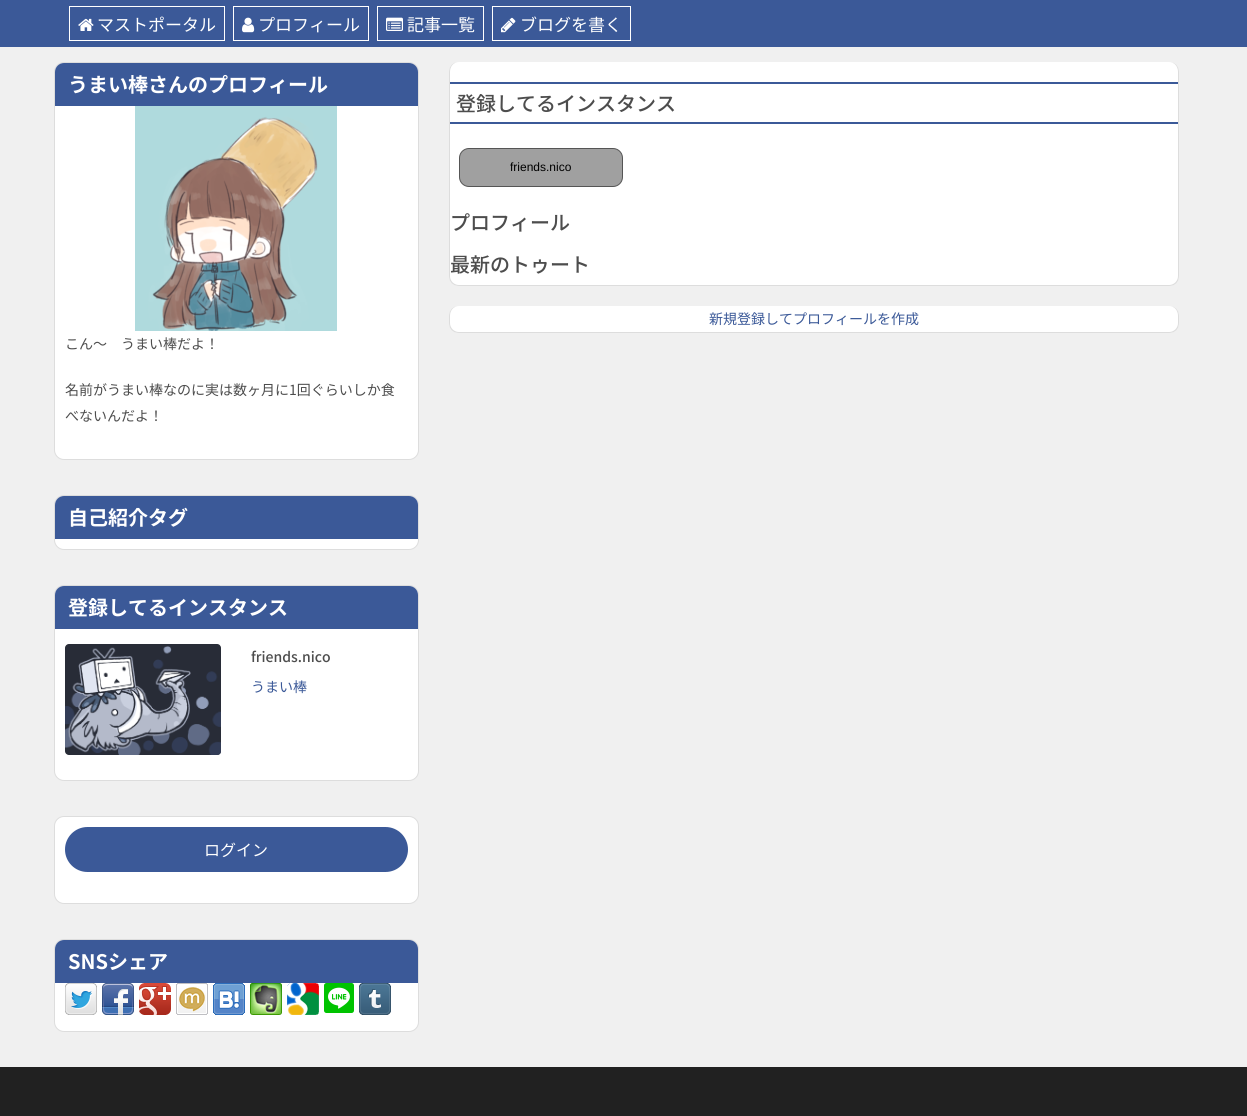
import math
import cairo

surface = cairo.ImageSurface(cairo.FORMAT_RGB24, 1247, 1116)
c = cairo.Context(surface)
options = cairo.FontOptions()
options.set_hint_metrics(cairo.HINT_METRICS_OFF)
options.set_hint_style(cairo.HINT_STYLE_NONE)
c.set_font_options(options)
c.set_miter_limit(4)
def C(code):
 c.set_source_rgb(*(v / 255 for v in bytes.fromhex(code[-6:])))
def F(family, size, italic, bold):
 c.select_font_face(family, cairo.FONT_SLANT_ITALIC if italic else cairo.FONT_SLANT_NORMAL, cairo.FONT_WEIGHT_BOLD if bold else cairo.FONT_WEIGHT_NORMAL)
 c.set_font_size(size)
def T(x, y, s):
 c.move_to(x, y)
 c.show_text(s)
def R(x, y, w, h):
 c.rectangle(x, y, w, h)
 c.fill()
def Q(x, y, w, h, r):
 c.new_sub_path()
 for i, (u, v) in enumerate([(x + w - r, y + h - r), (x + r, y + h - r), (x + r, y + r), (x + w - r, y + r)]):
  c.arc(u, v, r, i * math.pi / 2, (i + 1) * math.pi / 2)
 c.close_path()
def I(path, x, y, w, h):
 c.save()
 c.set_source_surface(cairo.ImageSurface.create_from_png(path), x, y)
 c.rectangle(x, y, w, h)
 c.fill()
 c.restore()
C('f0f0f0')
c.paint()
C('3b5998')
R(0,0,1247,47)
c.rectangle(69.5,6.5,155,34)
C('ffffff')
c.set_line_width(1)
c.stroke()
I('1.png',78,18,16,13)
F('Noto Sans JP',17,0,0)
T(97,31,'マストポータル')
c.rectangle(233.5,6.5,135,34)
c.stroke()
I('2.png',242,17,13,16)
T(258,31,'プロフィール')
c.rectangle(377.5,6.5,106,34)
c.stroke()
I('3.png',386,17,17,14)
T(407,31,'記事一覧')
c.rectangle(492.5,6.5,138,34)
c.stroke()
I('4.png',501,17,15,16)
T(520,31,'ブログを書く')
Q(54.5,62.5,364,397,9.5)
c.fill_preserve()
C('dddddd')
c.stroke()
C('3b5998')
c.new_path()
c.move_to(64,63)
c.line_to(409,63)
c.curve_to(414,63,418,67,418,72)
c.line_to(418,106)
c.line_to(55,106)
c.line_to(55,72)
c.curve_to(55,67,59,63,64,63)
c.close_path()
c.fill()
F('Noto Sans JP',20,0,1)
C('ffffff')
T(68,92,'うまい棒さんのプロフィール')
I('5.png',135,106,202,225)
F('Noto Sans JP',14,0,0)
C('4d4d4d')
T(65,349,'こん～　うまい棒だよ！')
T(65,395,'名前がうまい棒なのに実は数ヶ月に1回ぐらいしか食')
T(65,421,'べないんだよ！')
C('ffffff')
Q(54.5,495.5,364,54,9.5)
c.fill_preserve()
C('dddddd')
c.stroke()
C('3b5998')
c.new_path()
c.move_to(64,496)
c.line_to(409,496)
c.curve_to(414,496,418,500,418,505)
c.line_to(418,539)
c.line_to(55,539)
c.line_to(55,505)
c.curve_to(55,500,59,496,64,496)
c.close_path()
c.fill()
F('Noto Sans JP',20,0,1)
C('ffffff')
T(68,525,'自己紹介タグ')
Q(54.5,585.5,364,195,9.5)
c.fill_preserve()
C('dddddd')
c.stroke()
C('3b5998')
c.new_path()
c.move_to(64,586)
c.line_to(409,586)
c.curve_to(414,586,418,590,418,595)
c.line_to(418,629)
c.line_to(55,629)
c.line_to(55,595)
c.curve_to(55,590,59,586,64,586)
c.close_path()
c.fill()
C('ffffff')
T(68,615,'登録してるインスタンス')
C('282c37')
Q(65,644,156,111,4)
c.fill()
I('6.png',65,646,156,109)
F('Noto Sans JP Medium',14,0,0)
C('4d4d4d')
T(251,662,'friends.nico')
F('Noto Sans JP',14,0,0)
C('3b5998')
T(251,692,'うまい棒')
C('ffffff')
Q(54.5,816.5,364,87,9.5)
c.fill_preserve()
C('dddddd')
c.stroke()
C('3b5998')
Q(65,827,343,45,22.5)
c.fill()
F('Noto Sans JP',16,0,0)
C('ffffff')
T(204,856,'ログイン')
Q(54.5,939.5,364,92,9.5)
c.fill_preserve()
C('dddddd')
c.stroke()
C('3b5998')
c.new_path()
c.move_to(64,940)
c.line_to(409,940)
c.curve_to(414,940,418,944,418,949)
c.line_to(418,983)
c.line_to(55,983)
c.line_to(55,949)
c.curve_to(55,944,59,940,64,940)
c.close_path()
c.fill()
F('Noto Sans JP',20,0,1)
C('ffffff')
T(68,969,'SNSシェア')
I('7.png',65,983,32,32)
I('8.png',102,983,32,32)
I('9.png',139,983,32,32)
I('10.png',176,983,32,32)
I('11.png',213,983,32,32)
I('12.png',250,983,32,32)
I('13.png',287,983,32,32)
I('14.png',324,983,30,30)
I('15.png',359,983,32,32)
Q(449,62,730,224,10)
c.fill()
C('dddddd')
c.set_fill_rule(cairo.FILL_RULE_EVEN_ODD)
c.new_path()
c.move_to(459,62)
c.line_to(1169,62)
c.curve_to(1175,62,1179,66,1179,72)
c.line_to(1179,276)
c.curve_to(1179,282,1175,286,1169,286)
c.line_to(459,286)
c.curve_to(453,286,449,282,449,276)
c.line_to(449,72)
c.curve_to(449,66,453,62,459,62)
c.close_path()
c.move_to(459,62)
c.line_to(1169,62)
c.curve_to(1174,62,1178,66,1178,72)
c.line_to(1178,276)
c.curve_to(1178,281,1174,285,1169,285)
c.line_to(459,285)
c.curve_to(454,285,450,281,450,276)
c.line_to(450,72)
c.curve_to(450,66,454,62,459,62)
c.close_path()
c.fill()
C('3b5998')
R(450,82,728,2)
R(450,122,728,2)
F('Noto Sans JP Medium',20,0,0)
C('4d4d4d')
T(456,111,'登録してるインスタンス')
C('a0a0a0')
Q(459.5,148.5,163,38,9.5)
c.fill_preserve()
C('555555')
c.stroke()
F('Liberation Sans',12,0,0)
C('000000')
T(510,171,'friends.nico')
F('Noto Sans JP Medium',20,0,0)
C('4d4d4d')
T(450,230,'プロフィール')
T(450,272,'最新のトゥート')
C('ffffff')
Q(449,306,730,27,10)
c.fill()
C('dddddd')
c.new_path()
c.move_to(459,306)
c.line_to(1169,306)
c.curve_to(1175,306,1179,310,1179,316)
c.line_to(1179,323)
c.curve_to(1179,329,1175,333,1169,333)
c.line_to(459,333)
c.curve_to(453,333,449,329,449,323)
c.line_to(449,316)
c.curve_to(449,310,453,306,459,306)
c.close_path()
c.move_to(459,306)
c.line_to(1169,306)
c.curve_to(1174,306,1178,310,1178,316)
c.line_to(1178,323)
c.curve_to(1178,328,1174,332,1169,332)
c.line_to(459,332)
c.curve_to(454,332,450,328,450,323)
c.line_to(450,316)
c.curve_to(450,310,454,306,459,306)
c.close_path()
c.fill()
F('Noto Sans JP',14,0,0)
C('3b5998')
T(709,324,'新規登録してプロフィールを作成')
C('212121')
R(0,1067,1247,49)
surface.write_to_png('o.png')
